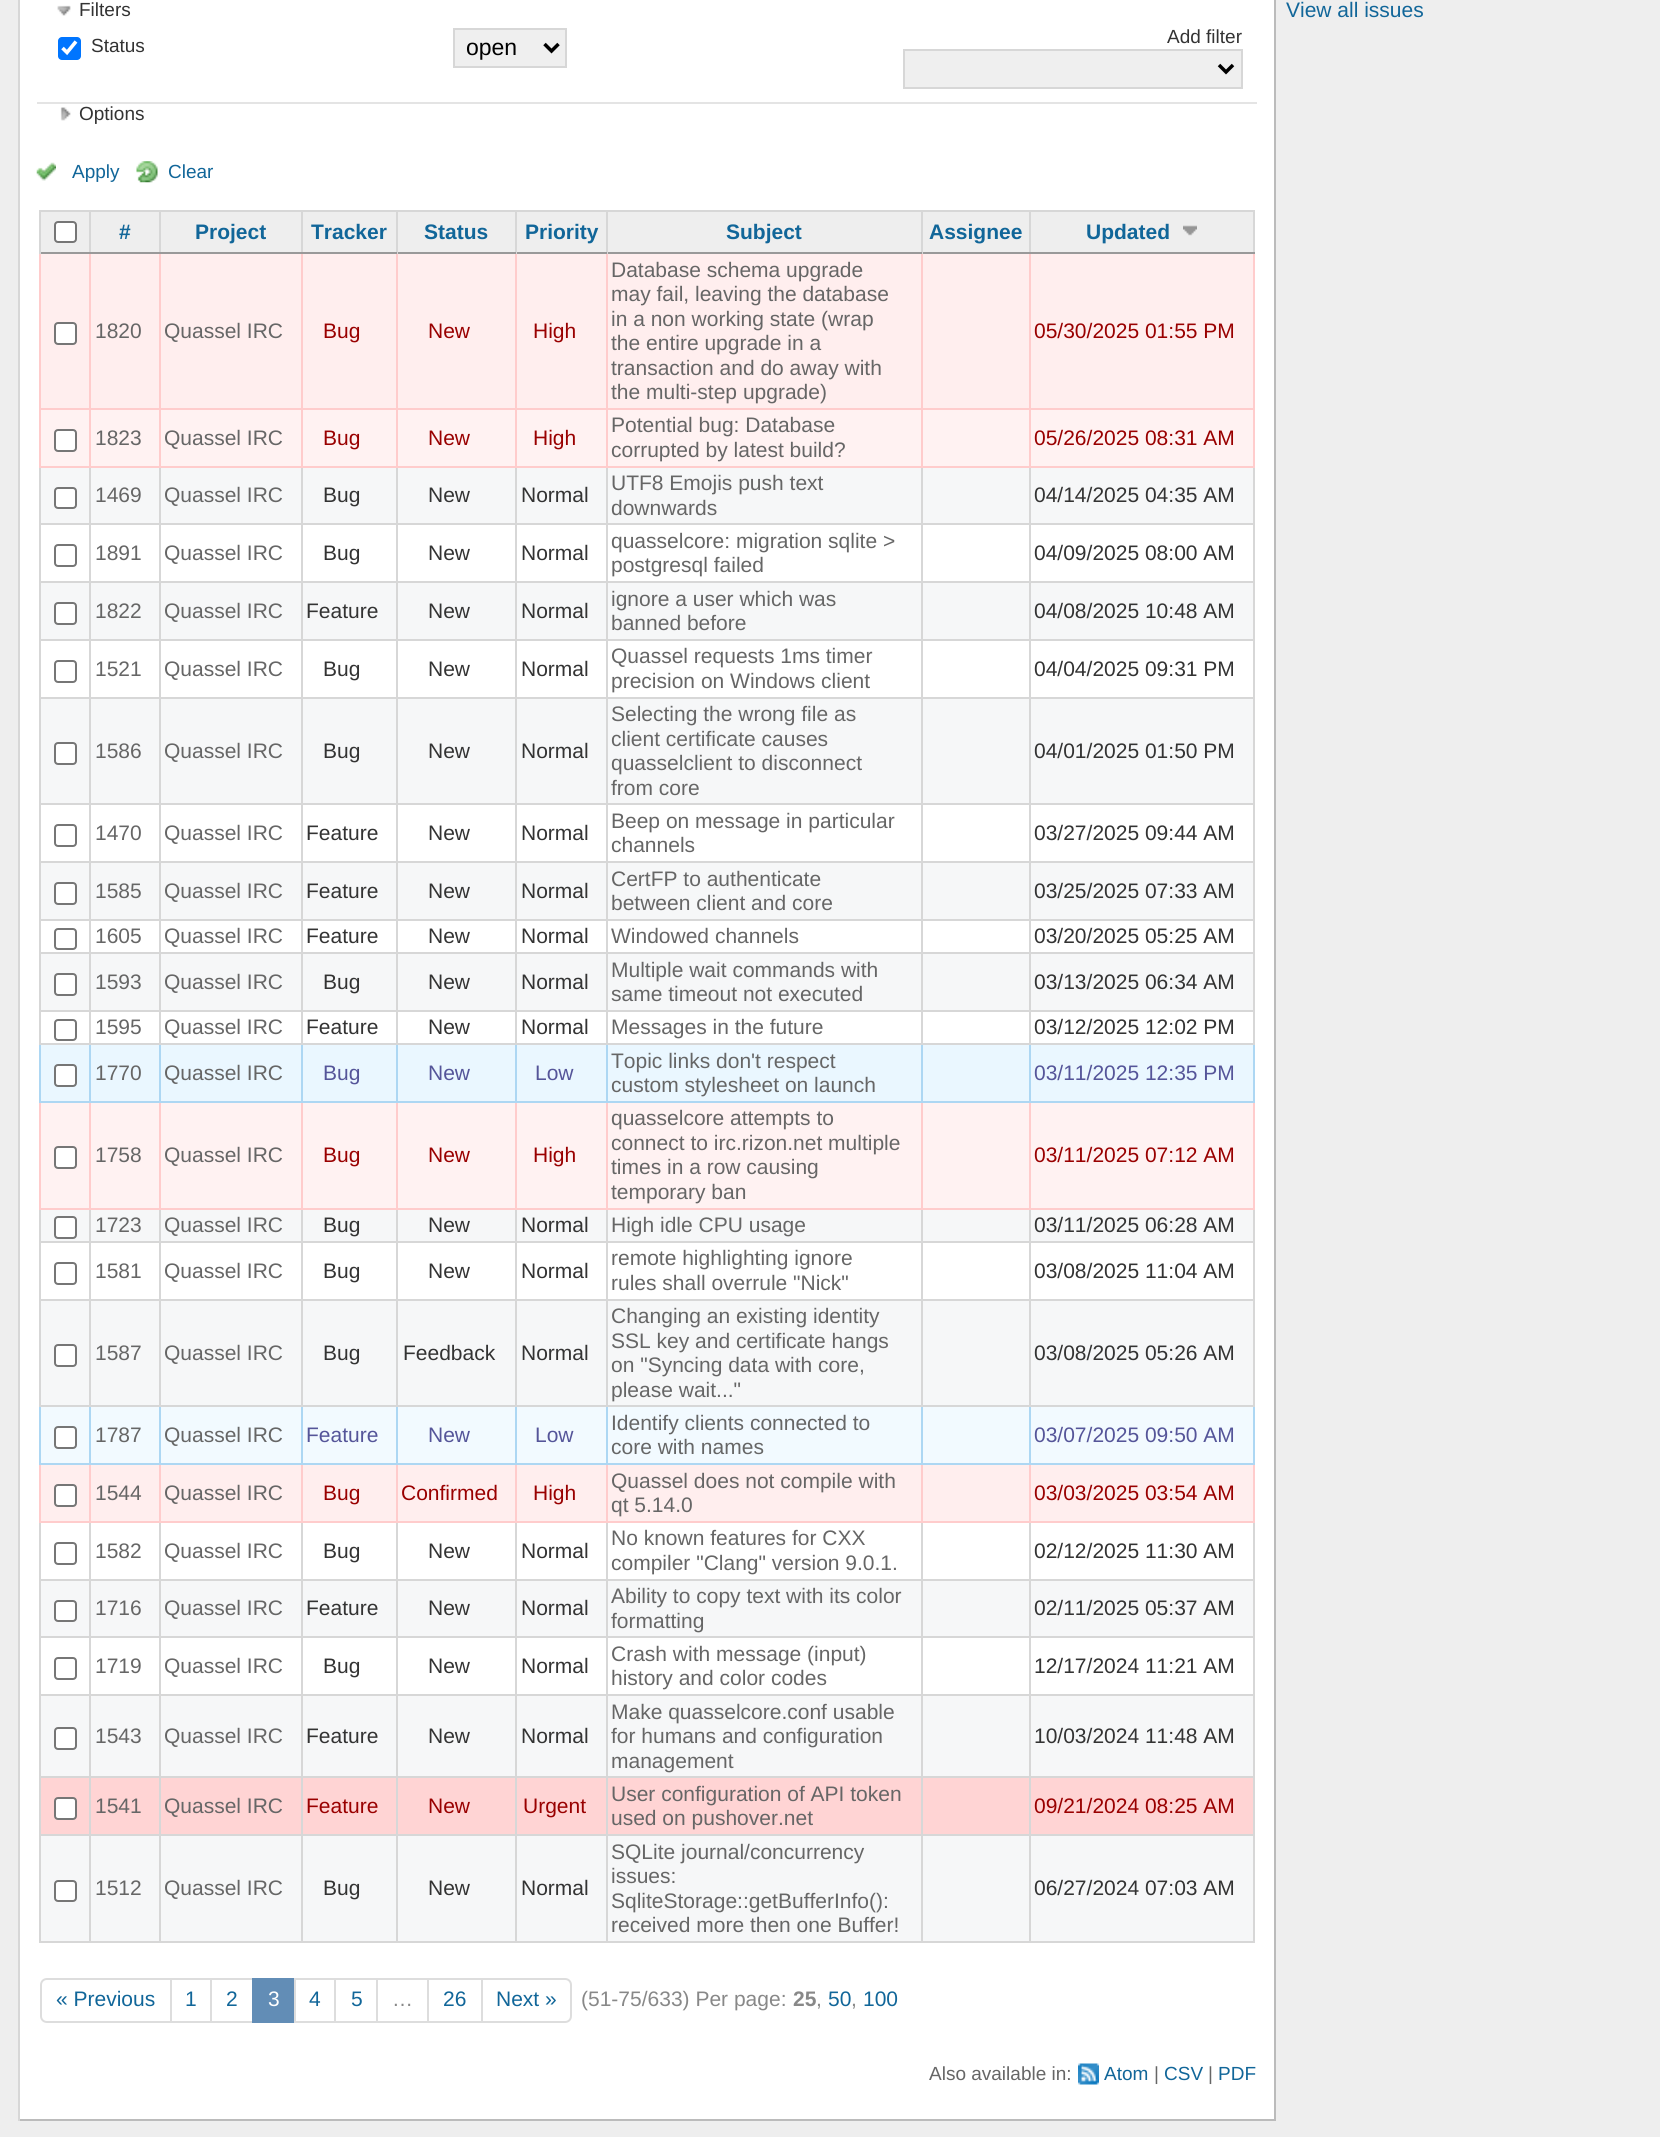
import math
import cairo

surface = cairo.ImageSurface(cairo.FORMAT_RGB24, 1660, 2137)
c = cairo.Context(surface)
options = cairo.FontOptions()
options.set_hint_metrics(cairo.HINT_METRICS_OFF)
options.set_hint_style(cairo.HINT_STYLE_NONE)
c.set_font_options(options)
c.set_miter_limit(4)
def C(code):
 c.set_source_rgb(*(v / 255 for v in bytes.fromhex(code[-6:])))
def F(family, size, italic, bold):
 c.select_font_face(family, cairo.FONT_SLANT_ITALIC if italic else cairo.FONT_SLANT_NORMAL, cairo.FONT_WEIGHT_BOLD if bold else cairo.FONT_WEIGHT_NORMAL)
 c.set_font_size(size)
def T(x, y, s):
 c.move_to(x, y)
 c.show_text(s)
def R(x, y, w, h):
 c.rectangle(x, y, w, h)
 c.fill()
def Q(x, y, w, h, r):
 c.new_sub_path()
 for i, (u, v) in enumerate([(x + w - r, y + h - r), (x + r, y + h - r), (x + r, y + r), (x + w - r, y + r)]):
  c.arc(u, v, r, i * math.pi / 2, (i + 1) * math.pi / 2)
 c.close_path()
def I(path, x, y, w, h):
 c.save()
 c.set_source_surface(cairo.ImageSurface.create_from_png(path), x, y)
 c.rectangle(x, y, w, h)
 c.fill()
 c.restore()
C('eeeeee')
c.paint()
C('ffffff')
R(20,0,1254,2119)
C('bbbbbb')
R(1274,0,2,2121)
R(18,2119,1258,2)
C('d7d7d7')
R(18,0,2,2121)
I('1.png',57,5,14,11)
F('Liberation Sans',19,0,0)
C('333333')
T(79,16,'Filters')
T(1167,43,'Add filter')
C('efefef')
c.rectangle(904,50,338,38)
c.fill_preserve()
C('d7d7d7')
c.stroke()
c.new_path()
c.move_to(1219,65)
c.line_to(1226,72)
c.line_to(1233,65)
C('000000')
c.set_line_width(3.5)
c.stroke()
C('0075ff')
Q(58,37,23,23,4)
c.fill()
c.new_path()
c.move_to(62.5,48)
c.line_to(67,52.5)
c.line_to(76,41.5)
C('ffffff')
c.set_line_width(3.6)
c.stroke()
C('333333')
T(91,52,'Status')
C('efefef')
c.rectangle(454,29,112,38)
c.fill_preserve()
C('d7d7d7')
c.set_line_width(2)
c.stroke()
c.new_path()
c.move_to(544.5,44)
c.line_to(551.5,51)
c.line_to(558.5,44)
C('000000')
c.set_line_width(3.5)
c.stroke()
F('Liberation Sans',23,0,0)
T(466,55,'open')
C('e4e4e4')
R(37,102,1220,2)
I('2.png',60,107,11,14)
F('Liberation Sans',19,0,0)
C('333333')
T(79,120,'Options')
I('3.png',36,162,20,19)
C('116699')
T(72,178,'Apply')
I('4.png',136,161,22,22)
T(168,178,'Clear')
C('eeeeee')
R(41,212,48,40)
C('d7d7d7')
R(1029,210,226,2)
C('ffcccc')
R(1029,408,226,2)
C('d7d7d7')
R(1029,523,226,2)
R(1029,581,226,2)
R(1029,639,226,2)
R(1029,697,226,2)
R(1029,803,226,2)
R(1029,861,226,2)
R(1029,919,226,2)
R(1029,952,226,2)
R(1029,1010,226,2)
R(1029,1241,226,2)
R(1029,1299,226,2)
R(1029,1579,226,2)
R(1029,1636,226,2)
R(1029,1694,226,2)
R(1029,1776,226,2)
R(1029,1834,226,2)
R(1253,1834,2,109)
R(1253,1776,2,60)
R(1253,1694,2,84)
R(1253,1636,2,60)
R(1253,1521,2,117)
C('ffcccc')
R(1253,1463,2,60)
C('add7f3')
R(1253,1405,2,60)
C('d7d7d7')
R(1253,1299,2,108)
R(1253,1208,2,92)
C('ffcccc')
R(1253,1101,2,108)
C('add7f3')
R(1253,1043,2,60)
C('d7d7d7')
R(1253,1010,2,35)
R(1253,952,2,60)
R(1253,919,2,35)
R(1253,861,2,60)
R(1253,803,2,60)
R(1253,697,2,108)
R(1253,639,2,59)
R(1253,581,2,60)
R(1253,466,2,117)
C('ffcccc')
R(1253,252,2,215)
C('d7d7d7')
R(1253,210,2,44)
C('ffeeee')
R(41,254,1212,154)
C('fff2f2')
R(41,410,1212,56)
C('f6f7f8')
R(41,468,1212,55)
R(41,583,1212,56)
R(41,699,1212,104)
R(41,863,1212,56)
R(41,954,1212,56)
C('eaf7ff')
R(41,1045,1212,56)
C('fff2f2')
R(41,1103,1212,105)
C('f6f7f8')
R(41,1210,1212,31)
R(41,1301,1212,104)
C('f2faff')
R(41,1407,1212,56)
C('ffeeee')
R(41,1465,1212,56)
C('f6f7f8')
R(41,1581,1212,55)
R(41,1696,1212,80)
C('ffd4d4')
R(41,1778,1212,56)
C('f6f7f8')
R(41,1836,1212,105)
C('d7d7d7')
R(1029,1941,226,2)
R(1029,1834,2,109)
R(921,1834,110,2)
R(1029,1776,2,60)
R(921,1776,110,2)
R(1029,1694,2,84)
R(921,1694,110,2)
R(1029,1636,2,60)
R(921,1636,110,2)
R(1029,1579,2,59)
R(921,1579,110,2)
R(1029,1521,2,59)
C('ffcccc')
R(1029,1521,226,2)
R(1029,1463,2,60)
C('add7f3')
R(1029,1463,226,2)
R(1029,1405,2,60)
C('d7d7d7')
R(1029,1405,226,2)
R(1029,1299,2,108)
R(921,1299,110,2)
R(1029,1241,2,59)
R(921,1241,110,2)
R(1029,1208,2,35)
C('ffcccc')
R(1029,1208,226,2)
R(1029,1101,2,108)
C('add7f3')
R(1029,1101,226,2)
R(1029,1043,2,60)
C('d7d7d7')
R(1029,1043,226,2)
R(1029,1010,2,35)
R(921,1010,110,2)
R(1029,952,2,60)
R(921,952,110,2)
R(1029,919,2,35)
R(921,919,110,2)
R(1029,861,2,60)
R(921,861,110,2)
R(1029,803,2,60)
R(921,803,110,2)
R(1029,697,2,108)
R(921,697,110,2)
R(1029,639,2,59)
R(921,639,110,2)
R(1029,581,2,60)
R(921,581,110,2)
R(1029,523,2,60)
R(921,523,110,2)
R(1029,466,2,59)
C('ffcccc')
R(1029,466,226,2)
R(1029,408,2,59)
R(921,408,110,2)
R(1029,252,2,158)
C('999999')
R(1029,252,226,2)
C('d7d7d7')
R(1029,210,2,44)
R(921,210,110,2)
R(921,1941,110,2)
R(921,1834,2,109)
R(606,1834,316,2)
R(921,1776,2,60)
R(606,1776,316,2)
R(921,1694,2,84)
R(606,1694,316,2)
R(921,1636,2,60)
R(606,1636,316,2)
R(921,1579,2,59)
R(606,1579,316,2)
R(921,1521,2,59)
C('ffcccc')
R(921,1521,110,2)
R(921,1463,2,60)
C('add7f3')
R(921,1463,110,2)
R(921,1405,2,60)
C('d7d7d7')
R(921,1405,110,2)
R(921,1299,2,108)
R(606,1299,316,2)
R(921,1241,2,59)
R(606,1241,316,2)
R(921,1208,2,35)
C('ffcccc')
R(921,1208,110,2)
R(921,1101,2,108)
C('add7f3')
R(921,1101,110,2)
R(921,1043,2,60)
C('d7d7d7')
R(921,1043,110,2)
R(921,1010,2,35)
R(606,1010,316,2)
R(921,952,2,60)
R(606,952,316,2)
R(921,919,2,35)
R(606,919,316,2)
R(921,861,2,60)
R(606,861,316,2)
R(921,803,2,60)
R(606,803,316,2)
R(921,697,2,108)
R(606,697,316,2)
R(921,639,2,59)
R(606,639,316,2)
R(921,581,2,60)
R(606,581,316,2)
R(921,523,2,60)
R(606,523,316,2)
R(921,466,2,59)
C('ffcccc')
R(921,466,110,2)
R(921,408,2,59)
R(606,408,316,2)
R(921,252,2,158)
C('999999')
R(921,252,110,2)
C('d7d7d7')
R(921,210,2,44)
R(606,210,316,2)
R(606,1941,316,2)
R(606,1834,2,109)
R(515,1834,92,2)
R(606,1776,2,60)
R(515,1776,92,2)
R(606,1694,2,84)
R(515,1694,92,2)
R(606,1636,2,60)
R(515,1636,92,2)
R(606,1579,2,59)
R(515,1579,92,2)
R(606,1521,2,59)
C('ffcccc')
R(606,1521,316,2)
R(606,1463,2,60)
C('add7f3')
R(606,1463,316,2)
R(606,1405,2,60)
C('d7d7d7')
R(606,1405,316,2)
R(606,1299,2,108)
R(515,1299,92,2)
R(606,1241,2,59)
R(515,1241,92,2)
R(606,1208,2,35)
C('ffcccc')
R(606,1208,316,2)
R(606,1101,2,108)
C('add7f3')
R(606,1101,316,2)
R(606,1043,2,60)
C('d7d7d7')
R(606,1043,316,2)
R(606,1010,2,35)
R(515,1010,92,2)
R(606,952,2,60)
R(515,952,92,2)
R(606,919,2,35)
R(515,919,92,2)
R(606,861,2,60)
R(515,861,92,2)
R(606,803,2,60)
R(515,803,92,2)
R(606,697,2,108)
R(515,697,92,2)
R(606,639,2,59)
R(515,639,92,2)
R(606,581,2,60)
R(515,581,92,2)
R(606,523,2,60)
R(515,523,92,2)
R(606,466,2,59)
C('ffcccc')
R(606,466,316,2)
R(606,408,2,59)
R(515,408,92,2)
R(606,252,2,158)
C('999999')
R(606,252,316,2)
C('d7d7d7')
R(606,210,2,44)
R(515,210,92,2)
R(515,1941,92,2)
R(515,1834,2,109)
R(396,1834,120,2)
R(515,1776,2,60)
R(396,1776,120,2)
R(515,1694,2,84)
R(396,1694,120,2)
R(515,1636,2,60)
R(396,1636,120,2)
R(515,1579,2,59)
R(396,1579,120,2)
R(515,1521,2,59)
C('ffcccc')
R(515,1521,92,2)
R(515,1463,2,60)
C('add7f3')
R(515,1463,92,2)
R(515,1405,2,60)
C('d7d7d7')
R(515,1405,92,2)
R(515,1299,2,108)
R(396,1299,120,2)
R(515,1241,2,59)
R(396,1241,120,2)
R(515,1208,2,35)
C('ffcccc')
R(515,1208,92,2)
R(515,1101,2,108)
C('add7f3')
R(515,1101,92,2)
R(515,1043,2,60)
C('d7d7d7')
R(515,1043,92,2)
R(515,1010,2,35)
R(396,1010,120,2)
R(515,952,2,60)
R(396,952,120,2)
R(515,919,2,35)
R(396,919,120,2)
R(515,861,2,60)
R(396,861,120,2)
R(515,803,2,60)
R(396,803,120,2)
R(515,697,2,108)
R(396,697,120,2)
R(515,639,2,59)
R(396,639,120,2)
R(515,581,2,60)
R(396,581,120,2)
R(515,523,2,60)
R(396,523,120,2)
R(515,466,2,59)
C('ffcccc')
R(515,466,92,2)
R(515,408,2,59)
R(396,408,120,2)
R(515,252,2,158)
C('999999')
R(515,252,92,2)
C('d7d7d7')
R(515,210,2,44)
R(396,210,120,2)
R(396,1941,120,2)
R(396,1834,2,109)
R(301,1834,96,2)
R(396,1776,2,60)
R(301,1776,96,2)
R(396,1694,2,84)
R(301,1694,96,2)
R(396,1636,2,60)
R(301,1636,96,2)
R(396,1579,2,59)
R(301,1579,96,2)
R(396,1521,2,59)
C('ffcccc')
R(396,1521,120,2)
R(396,1463,2,60)
C('add7f3')
R(396,1463,120,2)
R(396,1405,2,60)
C('d7d7d7')
R(396,1405,120,2)
R(396,1299,2,108)
R(301,1299,96,2)
R(396,1241,2,59)
R(301,1241,96,2)
R(396,1208,2,35)
C('ffcccc')
R(396,1208,120,2)
R(396,1101,2,108)
C('add7f3')
R(396,1101,120,2)
R(396,1043,2,60)
C('d7d7d7')
R(396,1043,120,2)
R(396,1010,2,35)
R(301,1010,96,2)
R(396,952,2,60)
R(301,952,96,2)
R(396,919,2,35)
R(301,919,96,2)
R(396,861,2,60)
R(301,861,96,2)
R(396,803,2,60)
R(301,803,96,2)
R(396,697,2,108)
R(301,697,96,2)
R(396,639,2,59)
R(301,639,96,2)
R(396,581,2,60)
R(301,581,96,2)
R(396,523,2,60)
R(301,523,96,2)
R(396,466,2,59)
C('ffcccc')
R(396,466,120,2)
R(396,408,2,59)
R(301,408,96,2)
R(396,252,2,158)
C('999999')
R(396,252,120,2)
C('d7d7d7')
R(396,210,2,44)
R(301,210,96,2)
R(301,1941,96,2)
R(301,1834,2,109)
R(159,1834,144,2)
R(301,1776,2,60)
R(159,1776,144,2)
R(301,1694,2,84)
R(159,1694,144,2)
R(301,1636,2,60)
R(159,1636,144,2)
R(301,1579,2,59)
R(159,1579,144,2)
R(301,1521,2,59)
C('ffcccc')
R(301,1521,96,2)
R(301,1463,2,60)
C('add7f3')
R(301,1463,96,2)
R(301,1405,2,60)
C('d7d7d7')
R(301,1405,96,2)
R(301,1299,2,108)
R(159,1299,144,2)
R(301,1241,2,59)
R(159,1241,144,2)
R(301,1208,2,35)
C('ffcccc')
R(301,1208,96,2)
R(301,1101,2,108)
C('add7f3')
R(301,1101,96,2)
R(301,1043,2,60)
C('d7d7d7')
R(301,1043,96,2)
R(301,1010,2,35)
R(159,1010,144,2)
R(301,952,2,60)
R(159,952,144,2)
R(301,919,2,35)
R(159,919,144,2)
R(301,861,2,60)
R(159,861,144,2)
R(301,803,2,60)
R(159,803,144,2)
R(301,697,2,108)
R(159,697,144,2)
R(301,639,2,59)
R(159,639,144,2)
R(301,581,2,60)
R(159,581,144,2)
R(301,523,2,60)
R(159,523,144,2)
R(301,466,2,59)
C('ffcccc')
R(301,466,96,2)
R(301,408,2,59)
R(159,408,144,2)
R(301,252,2,158)
C('999999')
R(301,252,96,2)
C('d7d7d7')
R(301,210,2,44)
R(159,210,144,2)
R(159,1941,144,2)
R(159,1834,2,109)
R(89,1834,72,2)
R(159,1776,2,60)
R(89,1776,72,2)
R(159,1694,2,84)
R(89,1694,72,2)
R(159,1636,2,60)
R(89,1636,72,2)
R(159,1579,2,59)
R(89,1579,72,2)
R(159,1521,2,59)
C('ffcccc')
R(159,1521,144,2)
R(159,1463,2,60)
C('add7f3')
R(159,1463,144,2)
R(159,1405,2,60)
C('d7d7d7')
R(159,1405,144,2)
R(159,1299,2,108)
R(89,1299,72,2)
R(159,1241,2,59)
R(89,1241,72,2)
R(159,1208,2,35)
C('ffcccc')
R(159,1208,144,2)
R(159,1101,2,108)
C('add7f3')
R(159,1101,144,2)
R(159,1043,2,60)
C('d7d7d7')
R(159,1043,144,2)
R(159,1010,2,35)
R(89,1010,72,2)
R(159,952,2,60)
R(89,952,72,2)
R(159,919,2,35)
R(89,919,72,2)
R(159,861,2,60)
R(89,861,72,2)
R(159,803,2,60)
R(89,803,72,2)
R(159,697,2,108)
R(89,697,72,2)
R(159,639,2,59)
R(89,639,72,2)
R(159,581,2,60)
R(89,581,72,2)
R(159,523,2,60)
R(89,523,72,2)
R(159,466,2,59)
C('ffcccc')
R(159,466,144,2)
R(159,408,2,59)
R(89,408,72,2)
R(159,252,2,158)
C('999999')
R(159,252,144,2)
C('d7d7d7')
R(159,210,2,44)
R(89,210,72,2)
R(89,1941,72,2)
R(89,1834,2,109)
R(39,1834,52,2)
R(89,1776,2,60)
R(39,1776,52,2)
R(89,1694,2,84)
R(39,1694,52,2)
R(89,1636,2,60)
R(39,1636,52,2)
R(89,1579,2,59)
R(39,1579,52,2)
R(89,1521,2,59)
C('ffcccc')
R(89,1521,72,2)
R(89,1463,2,60)
C('add7f3')
R(89,1463,72,2)
R(89,1405,2,60)
C('d7d7d7')
R(89,1405,72,2)
R(89,1299,2,108)
R(39,1299,52,2)
R(89,1241,2,59)
R(39,1241,52,2)
R(89,1208,2,35)
C('ffcccc')
R(89,1208,72,2)
R(89,1101,2,108)
C('add7f3')
R(89,1101,72,2)
R(89,1043,2,60)
C('d7d7d7')
R(89,1043,72,2)
R(89,1010,2,35)
R(39,1010,52,2)
R(89,952,2,60)
R(39,952,52,2)
R(89,919,2,35)
R(39,919,52,2)
R(89,861,2,60)
R(39,861,52,2)
R(89,803,2,60)
R(39,803,52,2)
R(89,697,2,108)
R(39,697,52,2)
R(89,639,2,59)
R(39,639,52,2)
R(89,581,2,60)
R(39,581,52,2)
R(89,523,2,60)
R(39,523,52,2)
R(89,466,2,59)
C('ffcccc')
R(89,466,72,2)
R(89,408,2,59)
R(39,408,52,2)
R(89,252,2,158)
C('999999')
R(89,252,72,2)
C('d7d7d7')
R(89,210,2,44)
R(39,210,52,2)
R(39,1941,52,2)
R(39,1834,2,109)
R(39,1776,2,60)
R(39,1694,2,84)
R(39,1636,2,60)
R(39,1521,2,117)
C('ffcccc')
R(39,1521,52,2)
R(39,1463,2,60)
C('add7f3')
R(39,1463,52,2)
R(39,1405,2,60)
C('d7d7d7')
R(39,1405,52,2)
R(39,1299,2,108)
R(39,1208,2,92)
C('ffcccc')
R(39,1208,52,2)
R(39,1101,2,108)
C('add7f3')
R(39,1101,52,2)
R(39,1043,2,60)
C('d7d7d7')
R(39,1043,52,2)
R(39,1010,2,35)
R(39,952,2,60)
R(39,919,2,35)
R(39,861,2,60)
R(39,803,2,60)
R(39,697,2,108)
R(39,639,2,59)
R(39,581,2,60)
R(39,466,2,117)
C('ffcccc')
R(39,466,52,2)
R(39,252,2,215)
C('999999')
R(39,252,52,2)
C('d7d7d7')
R(39,210,2,44)
C('ffffff')
Q(55,222,21,20,3)
c.fill_preserve()
C('767676')
c.set_line_width(2)
c.stroke()
C('eeeeee')
R(91,212,68,40)
F('Liberation Sans',21,0,1)
C('116699')
T(119,239,'#')
C('eeeeee')
R(161,212,140,40)
C('116699')
T(195,239,'Project')
C('eeeeee')
R(303,212,93,40)
C('116699')
T(311,239,'Tracker')
C('eeeeee')
R(398,212,117,40)
C('116699')
T(424,239,'Status')
C('eeeeee')
R(517,212,89,40)
C('116699')
T(525,239,'Priority')
C('eeeeee')
R(608,212,313,40)
C('116699')
T(726,239,'Subject')
C('eeeeee')
R(923,212,106,40)
C('116699')
T(929,239,'Assignee')
C('eeeeee')
R(1031,212,222,40)
C('116699')
T(1086,239,'Updated')
I('5.png',1183,225,14,11)
C('ffffff')
Q(55,323,21,21,3)
c.fill_preserve()
C('767676')
c.stroke()
F('Liberation Sans',21,0,0)
C('666666')
T(95,338,'1820')
T(164,338,'Quassel IRC')
C('990000')
T(323,338,'Bug')
T(428,338,'New')
T(533,338,'High')
C('666666')
T(611,277,'Database schema upgrade')
T(611,301,'may fail, leaving the database')
T(611,326,'in a non working state (wrap')
T(611,350,'the entire upgrade in a')
T(611,375,'transaction and do away with')
T(611,399,'the multi-step upgrade)')
C('990000')
T(1034,338,'05/30/2025 01:55 PM')
C('ffffff')
Q(55,430,21,21,3)
c.fill_preserve()
C('767676')
c.stroke()
C('666666')
T(95,445,'1823')
T(164,445,'Quassel IRC')
C('990000')
T(323,445,'Bug')
T(428,445,'New')
T(533,445,'High')
C('666666')
T(611,432,'Potential bug: Database')
T(611,457,'corrupted by latest build?')
C('990000')
T(1034,445,'05/26/2025 08:31 AM')
C('ffffff')
Q(55,488,21,20,3)
c.fill_preserve()
C('767676')
c.stroke()
C('666666')
T(95,502,'1469')
T(164,502,'Quassel IRC')
C('333333')
T(323,502,'Bug')
T(428,502,'New')
T(521,502,'Normal')
C('666666')
T(611,490,'UTF8 Emojis push text')
T(611,515,'downwards')
C('333333')
T(1034,502,'04/14/2025 04:35 AM')
Q(55,545,21,21,3)
C('767676')
c.stroke()
C('666666')
T(95,560,'1891')
T(164,560,'Quassel IRC')
C('333333')
T(323,560,'Bug')
T(428,560,'New')
T(521,560,'Normal')
C('666666')
T(611,548,'quasselcore: migration sqlite >')
T(611,572,'postgresql failed')
C('333333')
T(1034,560,'04/09/2025 08:00 AM')
C('ffffff')
Q(55,603,21,21,3)
c.fill_preserve()
C('767676')
c.stroke()
C('666666')
T(95,618,'1822')
T(164,618,'Quassel IRC')
C('333333')
T(306,618,'Feature')
T(428,618,'New')
T(521,618,'Normal')
C('666666')
T(611,606,'ignore a user which was')
T(611,630,'banned before')
C('333333')
T(1034,618,'04/08/2025 10:48 AM')
Q(55,661,21,21,3)
C('767676')
c.stroke()
C('666666')
T(95,676,'1521')
T(164,676,'Quassel IRC')
C('333333')
T(323,676,'Bug')
T(428,676,'New')
T(521,676,'Normal')
C('666666')
T(611,663,'Quassel requests 1ms timer')
T(611,688,'precision on Windows client')
C('333333')
T(1034,676,'04/04/2025 09:31 PM')
C('ffffff')
Q(55,743,21,21,3)
c.fill_preserve()
C('767676')
c.stroke()
C('666666')
T(95,758,'1586')
T(164,758,'Quassel IRC')
C('333333')
T(323,758,'Bug')
T(428,758,'New')
T(521,758,'Normal')
C('666666')
T(611,721,'Selecting the wrong file as')
T(611,746,'client certificate causes')
T(611,770,'quasselclient to disconnect')
T(611,795,'from core')
C('333333')
T(1034,758,'04/01/2025 01:50 PM')
Q(55,825,21,21,3)
C('767676')
c.stroke()
C('666666')
T(95,840,'1470')
T(164,840,'Quassel IRC')
C('333333')
T(306,840,'Feature')
T(428,840,'New')
T(521,840,'Normal')
C('666666')
T(611,828,'Beep on message in particular')
T(611,852,'channels')
C('333333')
T(1034,840,'03/27/2025 09:44 AM')
C('ffffff')
Q(55,883,21,21,3)
c.fill_preserve()
C('767676')
c.stroke()
C('666666')
T(95,898,'1585')
T(164,898,'Quassel IRC')
C('333333')
T(306,898,'Feature')
T(428,898,'New')
T(521,898,'Normal')
C('666666')
T(611,886,'CertFP to authenticate')
T(611,910,'between client and core')
C('333333')
T(1034,898,'03/25/2025 07:33 AM')
Q(55,929,21,20,3)
C('767676')
c.stroke()
C('666666')
T(95,943,'1605')
T(164,943,'Quassel IRC')
C('333333')
T(306,943,'Feature')
T(428,943,'New')
T(521,943,'Normal')
C('666666')
T(611,943,'Windowed channels')
C('333333')
T(1034,943,'03/20/2025 05:25 AM')
C('ffffff')
Q(55,974,21,21,3)
c.fill_preserve()
C('767676')
c.stroke()
C('666666')
T(95,989,'1593')
T(164,989,'Quassel IRC')
C('333333')
T(323,989,'Bug')
T(428,989,'New')
T(521,989,'Normal')
C('666666')
T(611,977,'Multiple wait commands with')
T(611,1001,'same timeout not executed')
C('333333')
T(1034,989,'03/13/2025 06:34 AM')
Q(55,1020,21,20,3)
C('767676')
c.stroke()
C('666666')
T(95,1034,'1595')
T(164,1034,'Quassel IRC')
C('333333')
T(306,1034,'Feature')
T(428,1034,'New')
T(521,1034,'Normal')
C('666666')
T(611,1034,'Messages in the future')
C('333333')
T(1034,1034,'03/12/2025 12:02 PM')
C('ffffff')
Q(55,1065,21,21,3)
c.fill_preserve()
C('767676')
c.stroke()
C('666666')
T(95,1080,'1770')
T(164,1080,'Quassel IRC')
C('555599')
T(323,1080,'Bug')
T(428,1080,'New')
T(535,1080,'Low')
C('666666')
T(611,1068,'Topic links don\'t respect')
T(611,1092,'custom stylesheet on launch')
C('555599')
T(1034,1080,'03/11/2025 12:35 PM')
C('ffffff')
Q(55,1147,21,21,3)
c.fill_preserve()
C('767676')
c.stroke()
C('666666')
T(95,1162,'1758')
T(164,1162,'Quassel IRC')
C('990000')
T(323,1162,'Bug')
T(428,1162,'New')
T(533,1162,'High')
C('666666')
T(611,1125,'quasselcore attempts to')
T(611,1150,'connect to irc.rizon.net multiple')
T(611,1174,'times in a row causing')
T(611,1199,'temporary ban')
C('990000')
T(1034,1162,'03/11/2025 07:12 AM')
C('ffffff')
Q(55,1217,21,21,3)
c.fill_preserve()
C('767676')
c.stroke()
C('666666')
T(95,1232,'1723')
T(164,1232,'Quassel IRC')
C('333333')
T(323,1232,'Bug')
T(428,1232,'New')
T(521,1232,'Normal')
C('666666')
T(611,1232,'High idle CPU usage')
C('333333')
T(1034,1232,'03/11/2025 06:28 AM')
Q(55,1263,21,21,3)
C('767676')
c.stroke()
C('666666')
T(95,1278,'1581')
T(164,1278,'Quassel IRC')
C('333333')
T(323,1278,'Bug')
T(428,1278,'New')
T(521,1278,'Normal')
C('666666')
T(611,1265,'remote highlighting ignore')
T(611,1290,'rules shall overrule "Nick"')
C('333333')
T(1034,1278,'03/08/2025 11:04 AM')
C('ffffff')
Q(55,1345,21,21,3)
c.fill_preserve()
C('767676')
c.stroke()
C('666666')
T(95,1360,'1587')
T(164,1360,'Quassel IRC')
C('333333')
T(323,1360,'Bug')
T(403,1360,'Feedback')
T(521,1360,'Normal')
C('666666')
T(611,1323,'Changing an existing identity')
T(611,1348,'SSL key and certificate hangs')
T(611,1372,'on "Syncing data with core,')
T(611,1397,'please wait..."')
C('333333')
T(1034,1360,'03/08/2025 05:26 AM')
C('ffffff')
Q(55,1427,21,21,3)
c.fill_preserve()
C('767676')
c.stroke()
C('666666')
T(95,1442,'1787')
T(164,1442,'Quassel IRC')
C('555599')
T(306,1442,'Feature')
T(428,1442,'New')
T(535,1442,'Low')
C('666666')
T(611,1430,'Identify clients connected to')
T(611,1454,'core with names')
C('555599')
T(1034,1442,'03/07/2025 09:50 AM')
C('ffffff')
Q(55,1485,21,21,3)
c.fill_preserve()
C('767676')
c.stroke()
C('666666')
T(95,1500,'1544')
T(164,1500,'Quassel IRC')
C('990000')
T(323,1500,'Bug')
T(401,1500,'Confirmed')
T(533,1500,'High')
C('666666')
T(611,1488,'Quassel does not compile with')
T(611,1512,'qt 5.14.0')
C('990000')
T(1034,1500,'03/03/2025 03:54 AM')
Q(55,1543,21,21,3)
C('767676')
c.stroke()
C('666666')
T(95,1558,'1582')
T(164,1558,'Quassel IRC')
C('333333')
T(323,1558,'Bug')
T(428,1558,'New')
T(521,1558,'Normal')
C('666666')
T(611,1545,'No known features for CXX')
T(611,1570,'compiler "Clang" version 9.0.1.')
C('333333')
T(1034,1558,'02/12/2025 11:30 AM')
C('ffffff')
Q(55,1601,21,20,3)
c.fill_preserve()
C('767676')
c.stroke()
C('666666')
T(95,1615,'1716')
T(164,1615,'Quassel IRC')
C('333333')
T(306,1615,'Feature')
T(428,1615,'New')
T(521,1615,'Normal')
C('666666')
T(611,1603,'Ability to copy text with its color')
T(611,1628,'formatting')
C('333333')
T(1034,1615,'02/11/2025 05:37 AM')
Q(55,1658,21,21,3)
C('767676')
c.stroke()
C('666666')
T(95,1673,'1719')
T(164,1673,'Quassel IRC')
C('333333')
T(323,1673,'Bug')
T(428,1673,'New')
T(521,1673,'Normal')
C('666666')
T(611,1661,'Crash with message (input)')
T(611,1685,'history and color codes')
C('333333')
T(1034,1673,'12/17/2024 11:21 AM')
C('ffffff')
Q(55,1728,21,21,3)
c.fill_preserve()
C('767676')
c.stroke()
C('666666')
T(95,1743,'1543')
T(164,1743,'Quassel IRC')
C('333333')
T(306,1743,'Feature')
T(428,1743,'New')
T(521,1743,'Normal')
C('666666')
T(611,1719,'Make quasselcore.conf usable')
T(611,1743,'for humans and configuration')
T(611,1768,'management')
C('333333')
T(1034,1743,'10/03/2024 11:48 AM')
C('ffffff')
Q(55,1798,21,21,3)
c.fill_preserve()
C('767676')
c.stroke()
C('666666')
T(95,1813,'1541')
T(164,1813,'Quassel IRC')
C('990000')
T(306,1813,'Feature')
T(428,1813,'New')
T(523,1813,'Urgent')
C('666666')
T(611,1801,'User configuration of API token')
T(611,1825,'used on pushover.net')
C('990000')
T(1034,1813,'09/21/2024 08:25 AM')
C('ffffff')
Q(55,1881,21,20,3)
c.fill_preserve()
C('767676')
c.stroke()
C('666666')
T(95,1895,'1512')
T(164,1895,'Quassel IRC')
C('333333')
T(323,1895,'Bug')
T(428,1895,'New')
T(521,1895,'Normal')
C('666666')
T(611,1859,'SQLite journal/concurrency')
T(611,1883,'issues:')
T(611,1908,'SqliteStorage::getBufferInfo():')
T(611,1932,'received more then one Buffer!')
C('333333')
T(1034,1895,'06/27/2024 07:03 AM')
c.new_path()
c.move_to(47,1979)
c.line_to(171,1979)
c.line_to(171,2022)
c.line_to(47,2022)
c.curve_to(43.5,2022,41,2019.5,41,2016)
c.line_to(41,1985)
c.curve_to(41,1981.5,43.5,1979,47,1979)
c.close_path()
C('dddddd')
c.stroke()
C('116699')
T(56,2006,'« Previous')
c.rectangle(171,1979,40,43)
C('dddddd')
c.stroke()
C('116699')
T(185,2006,'1')
c.rectangle(211,1979,42,43)
C('dddddd')
c.stroke()
C('116699')
T(226,2006,'2')
C('628db6')
R(252,1978,42,45)
C('ffffff')
T(268,2006,'3')
c.rectangle(295,1979,40,43)
C('dddddd')
c.stroke()
C('116699')
T(309,2006,'4')
c.rectangle(335,1979,42,43)
C('dddddd')
c.stroke()
C('116699')
T(351,2006,'5')
c.rectangle(377,1979,51,43)
C('dddddd')
c.stroke()
C('888888')
T(392,2006,'…')
c.rectangle(428,1979,54,43)
C('dddddd')
c.stroke()
C('116699')
T(443,2006,'26')
c.new_path()
c.move_to(482,1979)
c.line_to(565,1979)
c.curve_to(568.5,1979,571,1981.5,571,1985)
c.line_to(571,2016)
c.curve_to(571,2019.5,568.5,2022,565,2022)
c.line_to(482,2022)
c.close_path()
C('dddddd')
c.stroke()
C('116699')
T(496,2006,'Next »')
C('888888')
T(581,2006,'(51-75/633) Per page:')
F('Liberation Sans',21,0,1)
T(793,2006,'25')
F('Liberation Sans',21,0,0)
T(816,2006,',')
C('116699')
T(828,2006,'50')
C('888888')
T(851,2006,',')
C('116699')
T(863,2006,'100')
F('Liberation Sans',19,0,0)
C('666666')
T(929,2080,'Also available in:')
I('6.png',1078,2063,21,22)
C('116699')
T(1104,2080,'Atom')
C('666666')
T(1154,2080,'|')
C('116699')
T(1164,2080,'CSV')
C('666666')
T(1208,2080,'|')
C('116699')
T(1218,2080,'PDF')
F('Liberation Sans',21,0,0)
T(1286,17,'View all issues')
surface.write_to_png('o.png')
